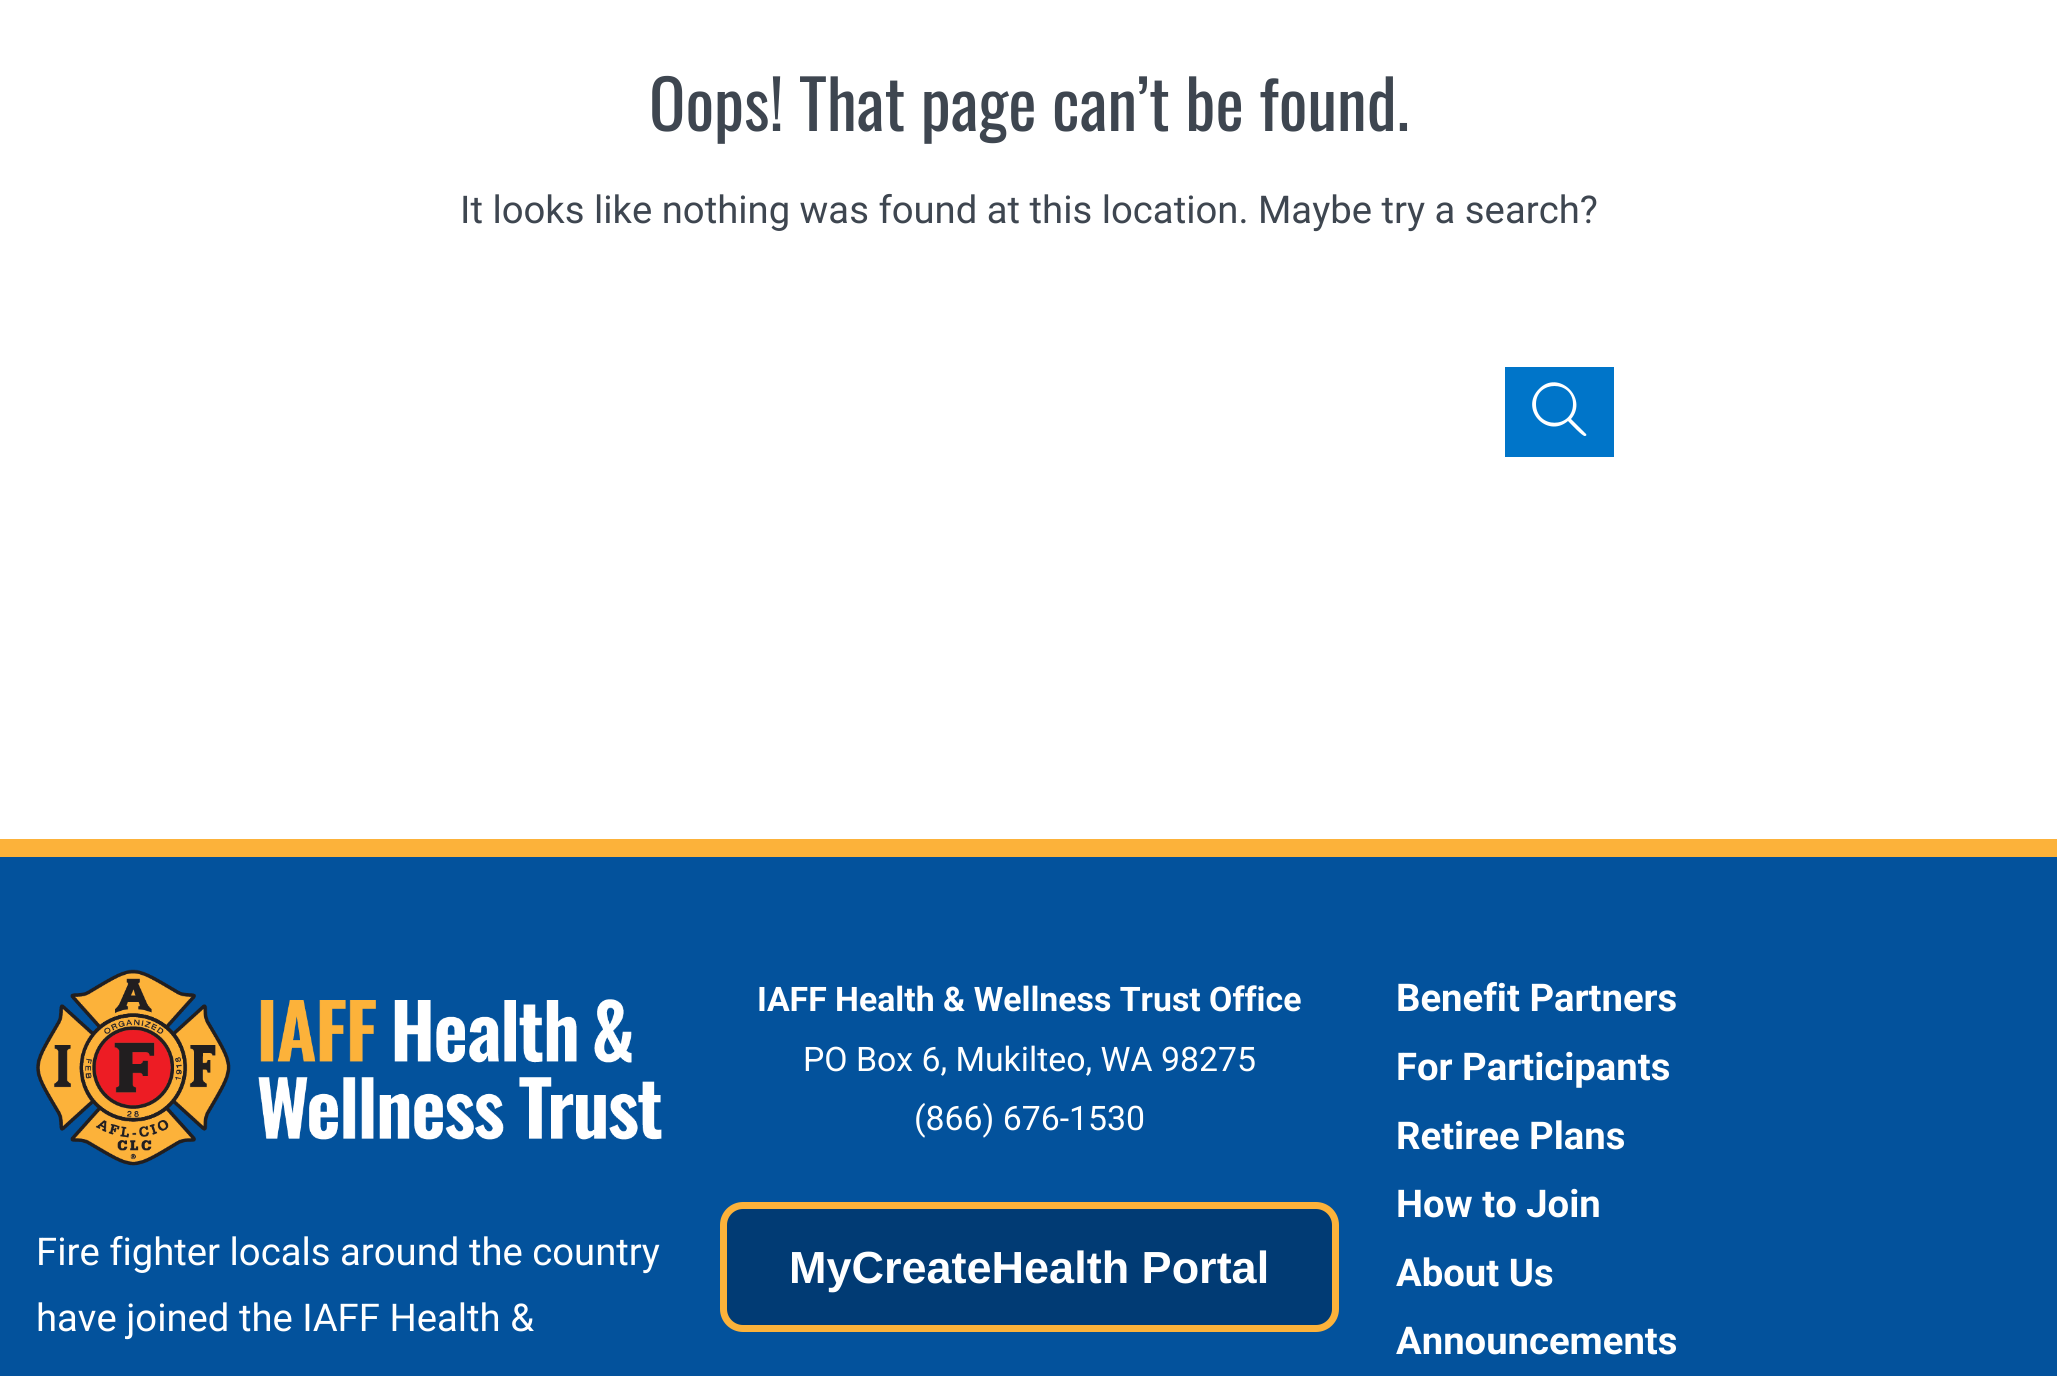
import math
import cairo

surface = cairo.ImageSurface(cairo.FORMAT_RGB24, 2057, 1376)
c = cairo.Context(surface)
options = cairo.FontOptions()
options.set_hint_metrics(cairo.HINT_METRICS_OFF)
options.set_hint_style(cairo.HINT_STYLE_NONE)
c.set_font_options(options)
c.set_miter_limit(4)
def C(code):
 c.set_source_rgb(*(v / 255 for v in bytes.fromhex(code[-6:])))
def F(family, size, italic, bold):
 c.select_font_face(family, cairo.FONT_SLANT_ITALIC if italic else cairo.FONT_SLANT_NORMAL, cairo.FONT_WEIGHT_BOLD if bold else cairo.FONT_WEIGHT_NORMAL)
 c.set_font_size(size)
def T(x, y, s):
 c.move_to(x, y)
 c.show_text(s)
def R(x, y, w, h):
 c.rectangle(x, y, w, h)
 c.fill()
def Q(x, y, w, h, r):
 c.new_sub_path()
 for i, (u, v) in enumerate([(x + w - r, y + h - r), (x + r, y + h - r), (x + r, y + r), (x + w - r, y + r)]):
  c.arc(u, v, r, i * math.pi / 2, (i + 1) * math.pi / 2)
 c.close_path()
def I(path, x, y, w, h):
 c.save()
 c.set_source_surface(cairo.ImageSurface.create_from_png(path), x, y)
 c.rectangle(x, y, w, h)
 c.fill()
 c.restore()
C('ffffff')
c.paint()
F('Oswald',67.5,0,0)
C('3e4650')
T(649,131,'Oops! That page can’t be found.')
F('Roboto',38.25,0,0)
T(460,223,'It looks like nothing was found at this location. Maybe try a search?')
C('0075c9')
R(1505,367,109,90)
C('ffffff')
c.new_path()
c.move_to(1573,404)
c.curve_to(1573,380,1536,380,1536,404)
c.curve_to(1536,429,1573,429,1573,404)
c.close_path()
c.move_to(1568,421)
c.curve_to(1547,439,1519,409,1539,389)
c.curve_to(1558,369,1589,398,1571,419)
c.line_to(1586,434)
c.curve_to(1587,435,1586,436,1585,436)
c.curve_to(1583,437,1570,423,1568,421)
c.close_path()
c.fill()
C('fcb23a')
R(0,839,2057,18)
C('03529c')
R(0,857,2057,519)
I('1.png',36,969,626,197)
C('ffffff')
T(36,1265,'Fire fighter locals around the country')
T(36,1331,'have joined the IAFF Health &')
F('Roboto',33.8,0,1)
T(757,1011,'IAFF Health & Wellness Trust Office')
F('Roboto',33.8,0,0)
T(803,1071,'PO Box 6, Mukilteo, WA 98275')
T(914,1130,'(866) 676-1530')
C('013b74')
Q(723.5,1205.5,612,123,19.5)
c.fill_preserve()
C('fcb23a')
c.set_line_width(7)
c.stroke()
F('Liberation Sans',45,0,1)
C('ffffff')
T(789,1283,'MyCreateHealth Portal')
F('Roboto',38.25,0,1)
T(1396,1011,'Benefit Partners')
T(1396,1080,'For Participants')
T(1396,1149,'Retiree Plans')
T(1396,1217,'How to Join')
T(1396,1286,'About Us')
T(1396,1354,'Announcements')
surface.write_to_png('o.png')
